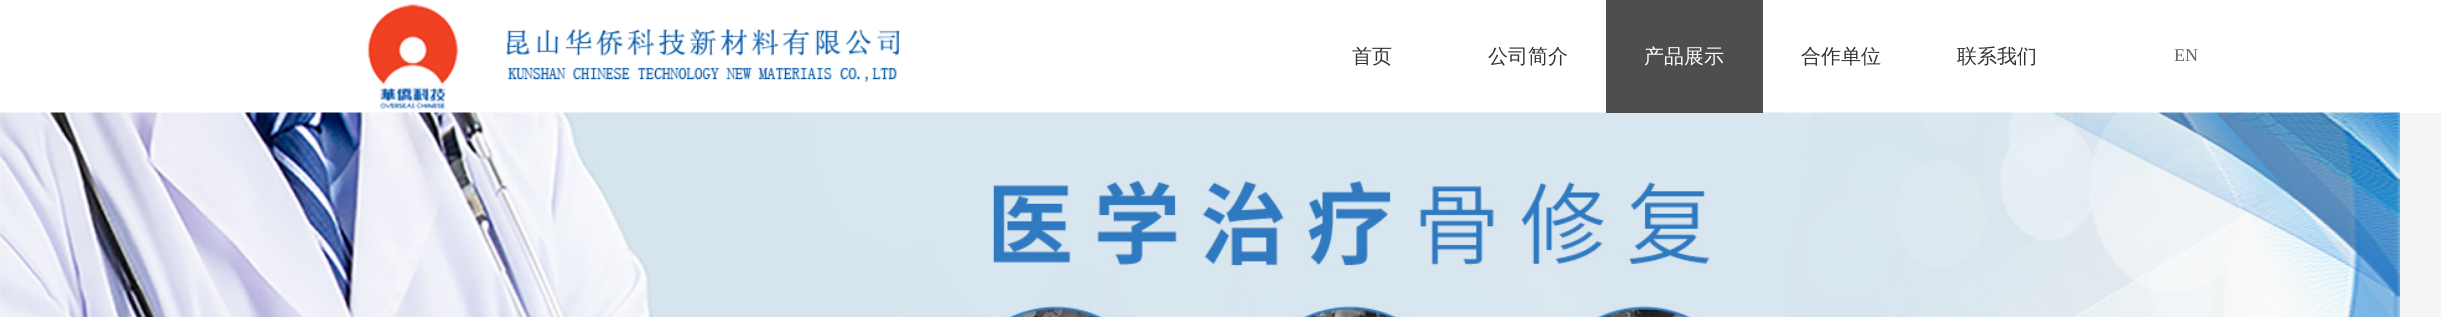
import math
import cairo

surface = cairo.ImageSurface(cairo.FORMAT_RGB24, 2441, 317)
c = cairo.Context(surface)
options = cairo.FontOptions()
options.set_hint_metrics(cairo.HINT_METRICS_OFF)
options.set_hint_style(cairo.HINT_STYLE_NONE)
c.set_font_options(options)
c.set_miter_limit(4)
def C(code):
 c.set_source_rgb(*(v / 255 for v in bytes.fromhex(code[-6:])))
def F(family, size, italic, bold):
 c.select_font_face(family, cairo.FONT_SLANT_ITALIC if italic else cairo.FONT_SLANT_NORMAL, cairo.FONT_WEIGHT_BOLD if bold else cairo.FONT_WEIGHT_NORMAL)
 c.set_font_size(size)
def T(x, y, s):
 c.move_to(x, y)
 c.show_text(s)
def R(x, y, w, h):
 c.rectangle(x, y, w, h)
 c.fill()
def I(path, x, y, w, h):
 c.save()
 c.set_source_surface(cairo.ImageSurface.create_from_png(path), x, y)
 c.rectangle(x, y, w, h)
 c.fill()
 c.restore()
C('ffffff')
c.paint()
I('1.png',367,3,534,107)
F('WenQuanYi Zen Hei Medium',20,0,0)
C('333333')
T(1352,63,'首页')
T(1488,63,'公司简介')
I('2.png',0,112,2400,205)
C('4e4e4e')
R(1606,0,157,113)
C('ffffff')
T(1644,63,'产品展示')
C('333333')
T(1801,63,'合作单位')
T(1957,63,'联系我们')
F('Liberation Serif',18,0,0)
C('666666')
T(2174,61,'EN')
C('f5f5f5')
R(2400,113,41,204)
surface.write_to_png('o.png')
